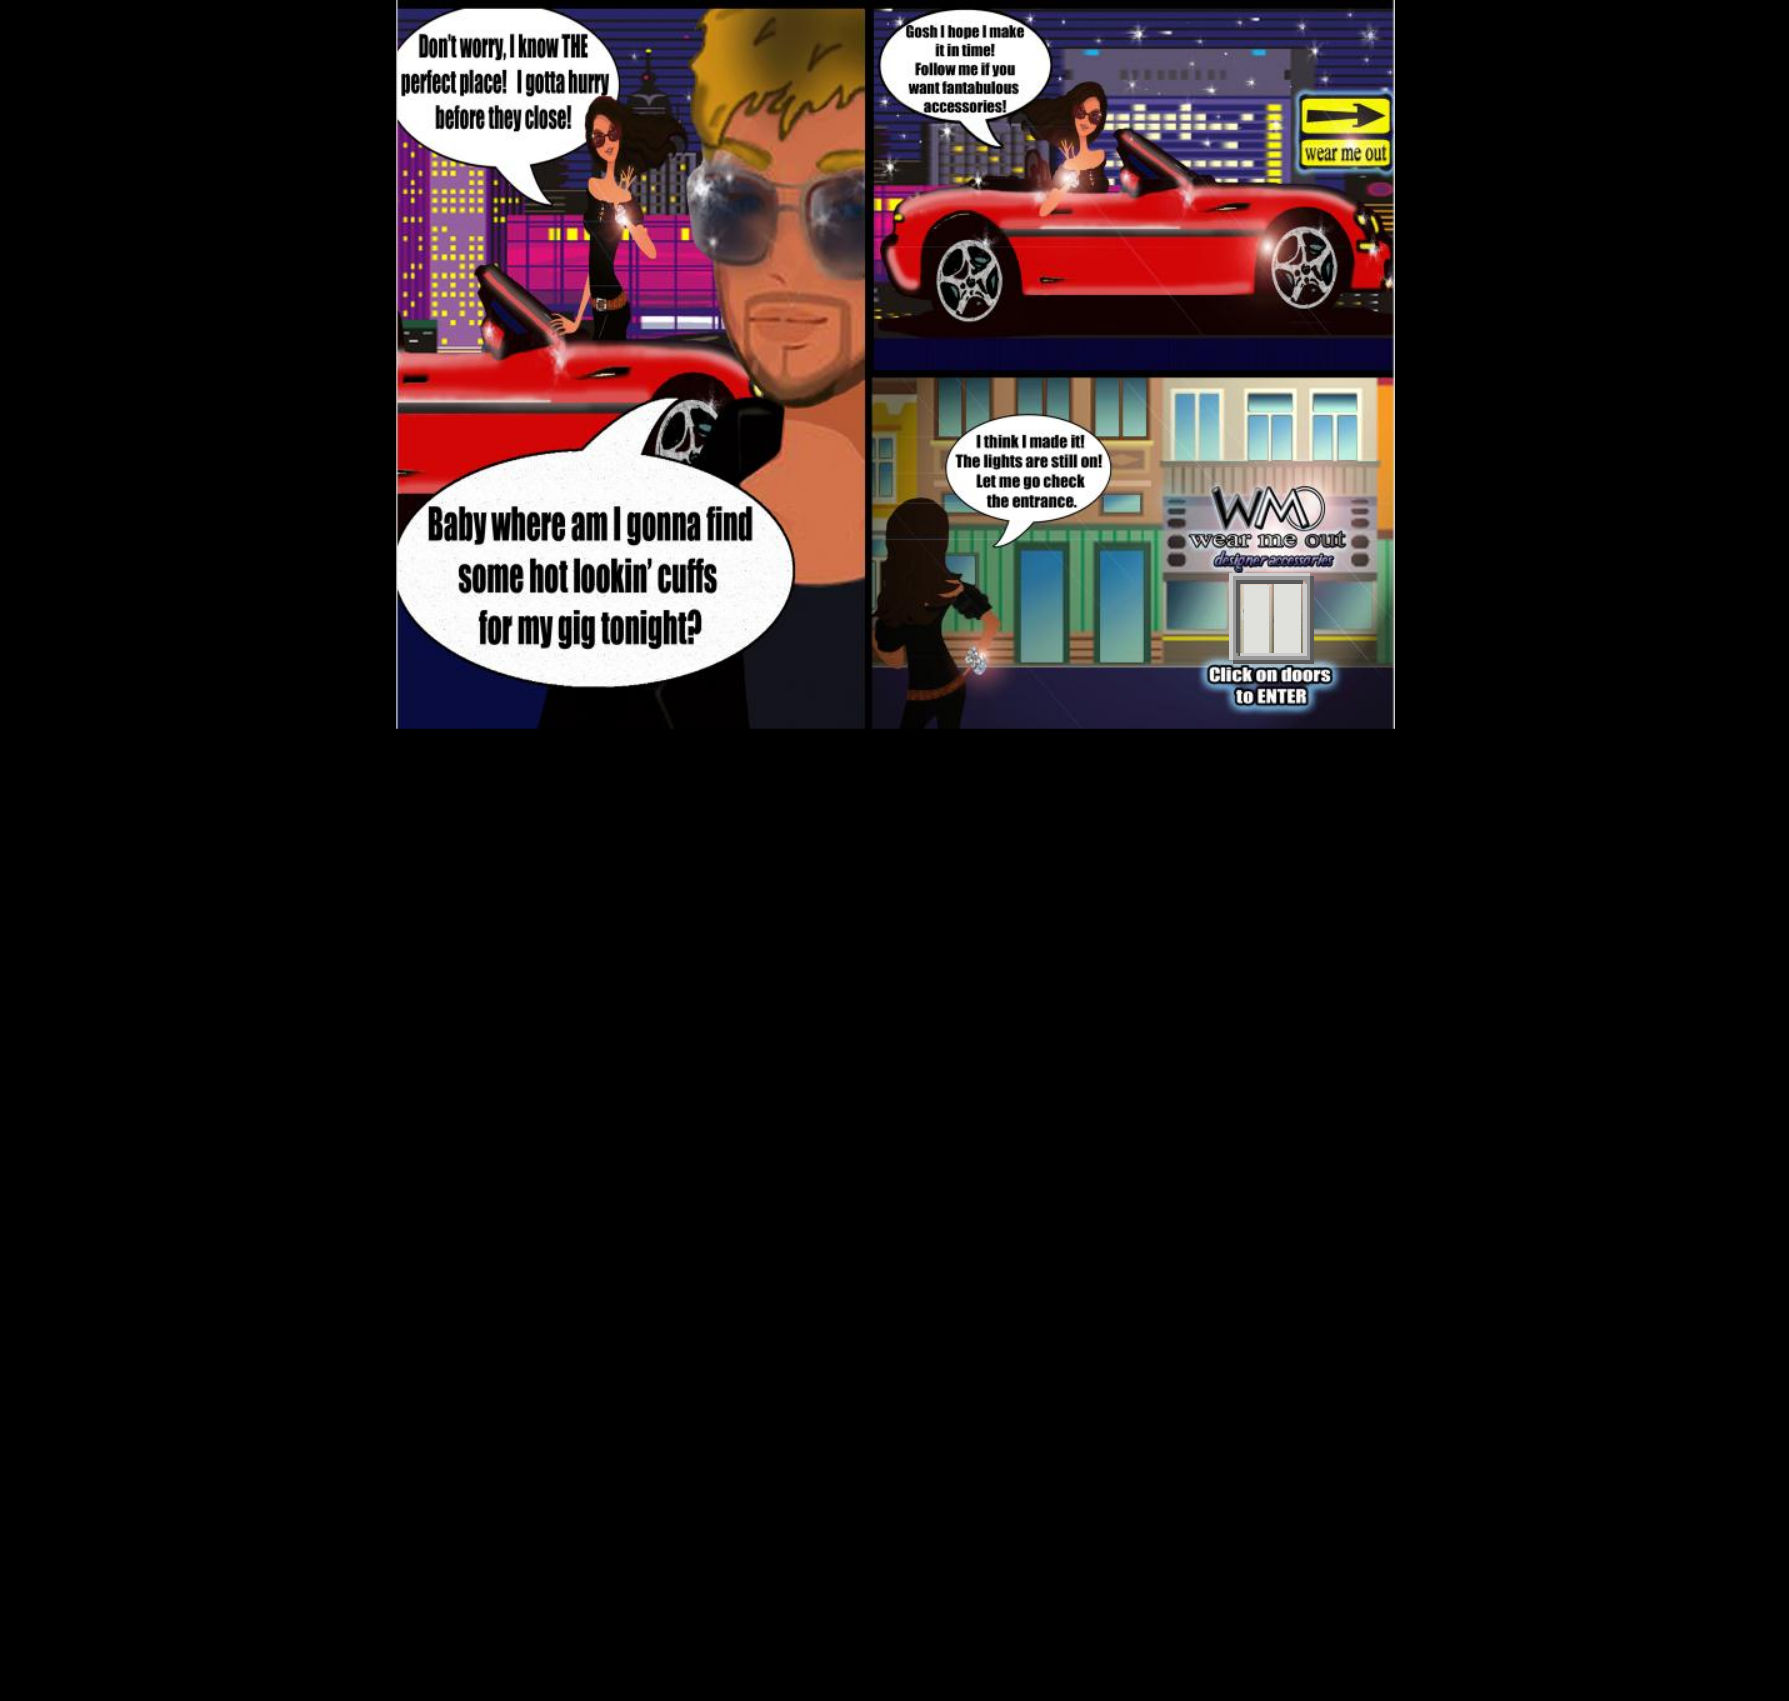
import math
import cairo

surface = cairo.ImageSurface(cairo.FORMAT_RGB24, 1789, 1701)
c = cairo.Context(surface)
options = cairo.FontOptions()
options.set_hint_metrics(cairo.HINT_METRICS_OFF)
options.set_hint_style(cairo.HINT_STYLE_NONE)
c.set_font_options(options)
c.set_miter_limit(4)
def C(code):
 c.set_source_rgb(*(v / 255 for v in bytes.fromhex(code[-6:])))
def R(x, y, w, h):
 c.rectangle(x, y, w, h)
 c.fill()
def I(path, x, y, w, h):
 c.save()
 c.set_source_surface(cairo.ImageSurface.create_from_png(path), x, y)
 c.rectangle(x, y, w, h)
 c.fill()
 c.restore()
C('000000')
c.paint()
I('1.png',396,0,999,729)
C('cccccc')
R(1229,573,81,3)
R(1229,576,4,84)
C('999999')
R(1233,576,77,4)
C('5a5a5a')
R(1310,576,4,88)
C('999999')
R(1233,580,4,80)
C('5a5a5a')
R(1236,580,67,4)
C('999999')
R(1306,580,4,80)
C('5a5a5a')
R(1236,584,4,69)
C('cccccc')
R(1303,584,4,72)
R(1240,653,63,3)
C('999999')
R(1236,656,70,4)
C('5a5a5a')
R(1233,660,77,4)
C('e0e0dd')
R(1244,585,25,68)
R(1274,584,27,69)
surface.write_to_png('o.png')
